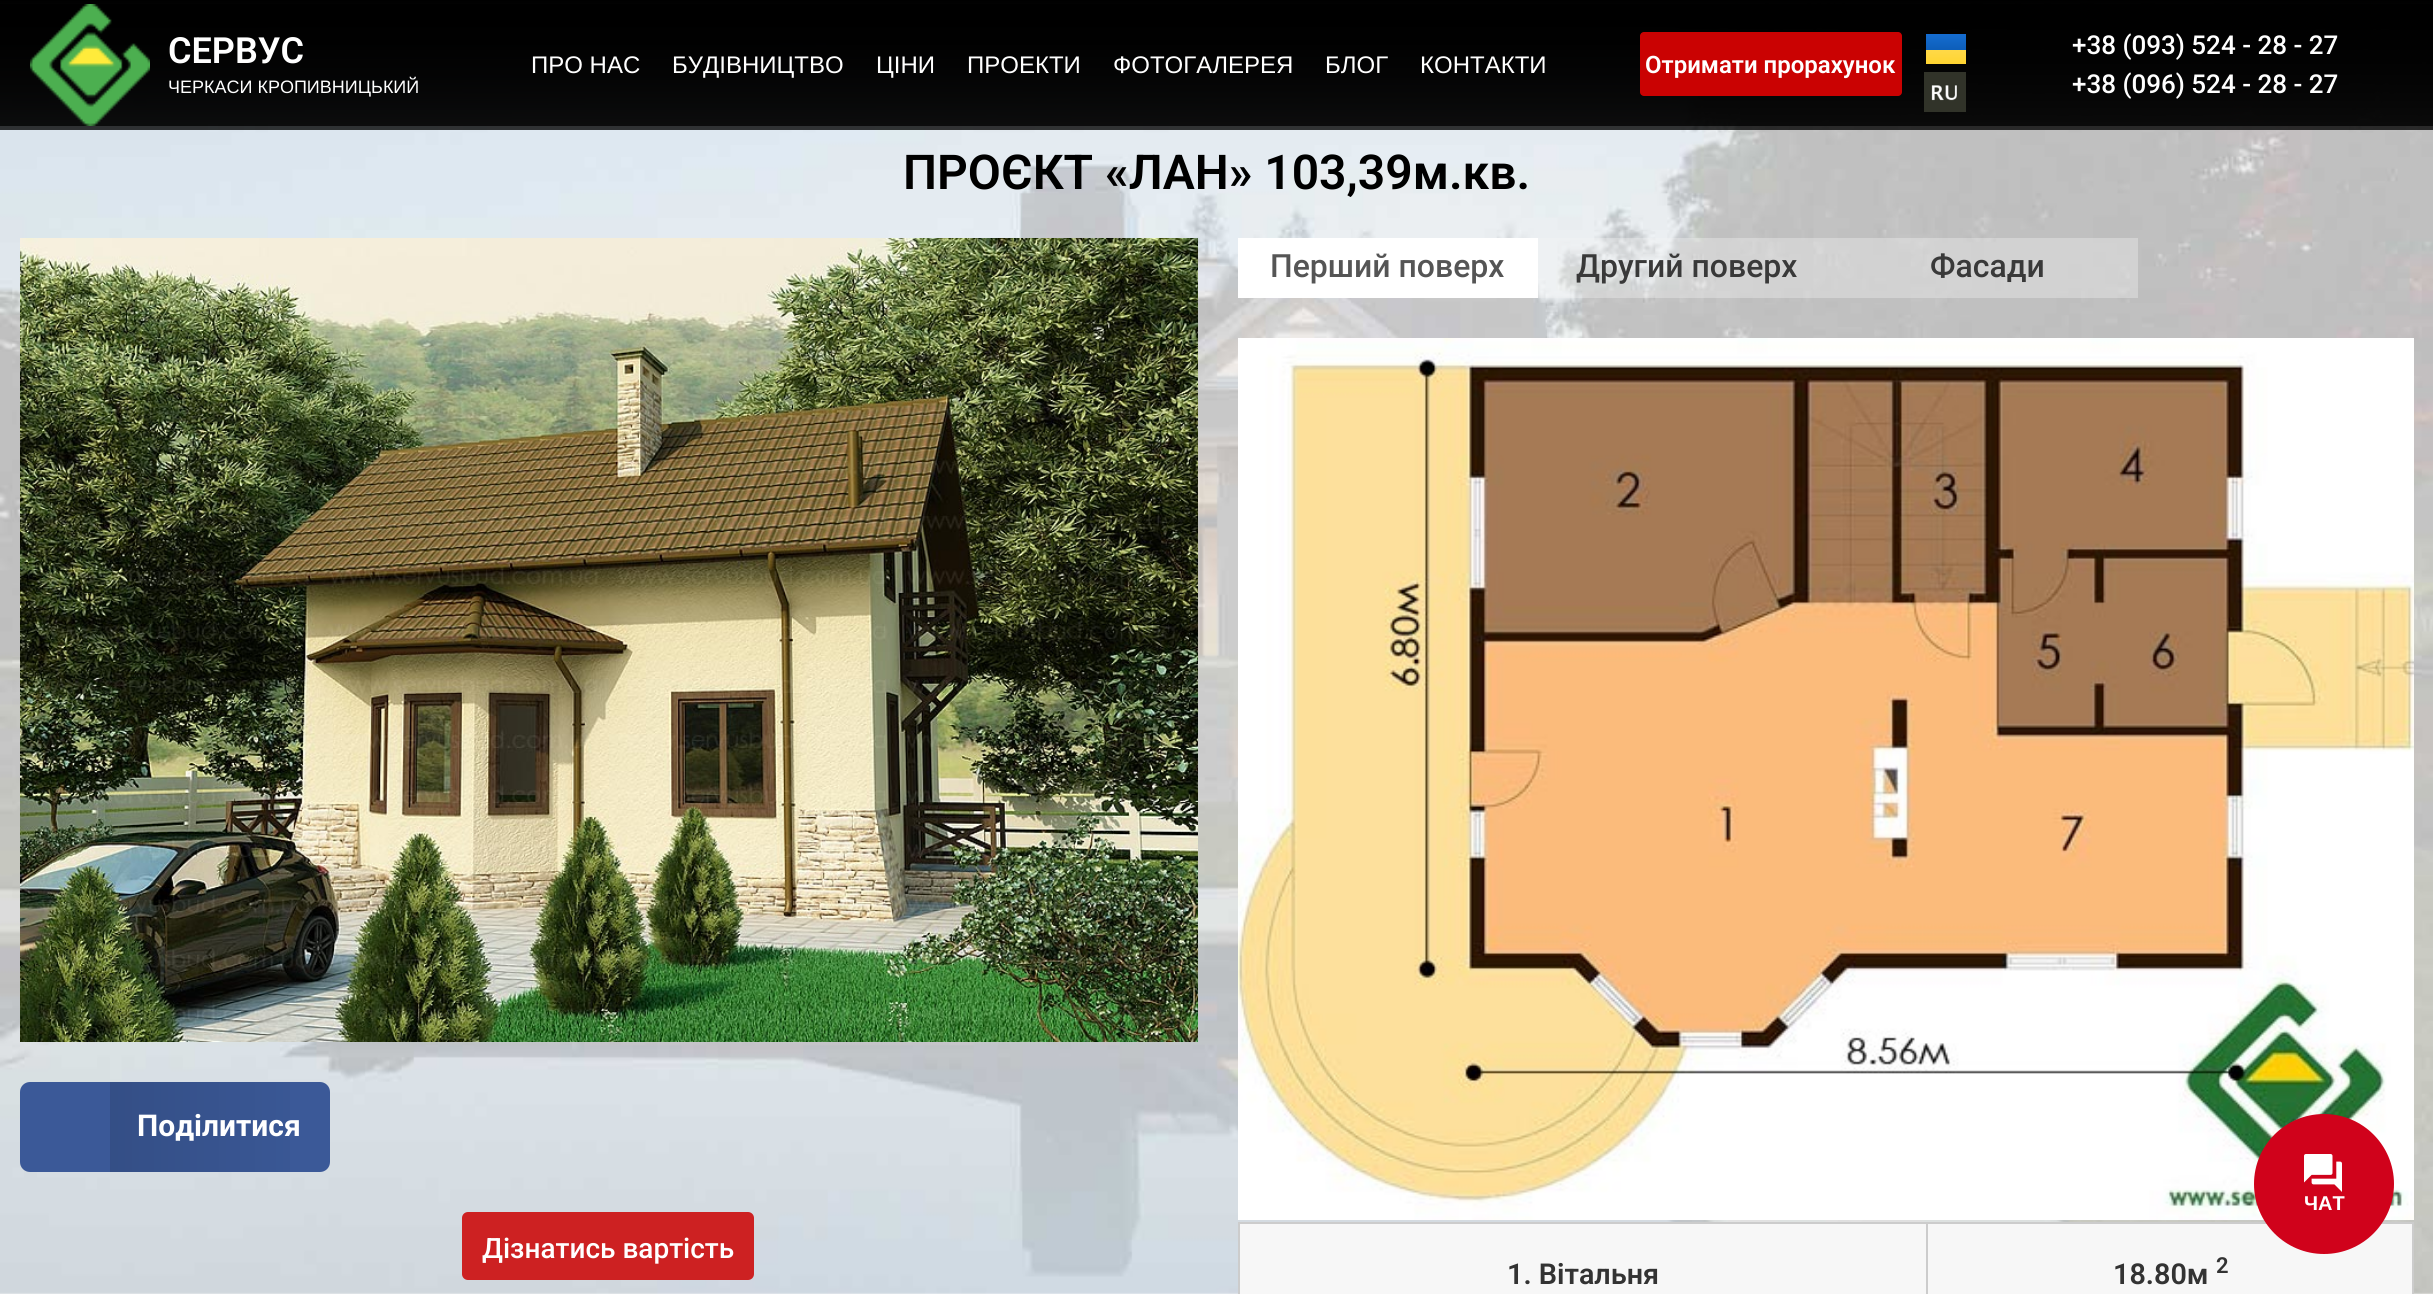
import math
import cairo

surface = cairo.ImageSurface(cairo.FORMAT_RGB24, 2433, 1294)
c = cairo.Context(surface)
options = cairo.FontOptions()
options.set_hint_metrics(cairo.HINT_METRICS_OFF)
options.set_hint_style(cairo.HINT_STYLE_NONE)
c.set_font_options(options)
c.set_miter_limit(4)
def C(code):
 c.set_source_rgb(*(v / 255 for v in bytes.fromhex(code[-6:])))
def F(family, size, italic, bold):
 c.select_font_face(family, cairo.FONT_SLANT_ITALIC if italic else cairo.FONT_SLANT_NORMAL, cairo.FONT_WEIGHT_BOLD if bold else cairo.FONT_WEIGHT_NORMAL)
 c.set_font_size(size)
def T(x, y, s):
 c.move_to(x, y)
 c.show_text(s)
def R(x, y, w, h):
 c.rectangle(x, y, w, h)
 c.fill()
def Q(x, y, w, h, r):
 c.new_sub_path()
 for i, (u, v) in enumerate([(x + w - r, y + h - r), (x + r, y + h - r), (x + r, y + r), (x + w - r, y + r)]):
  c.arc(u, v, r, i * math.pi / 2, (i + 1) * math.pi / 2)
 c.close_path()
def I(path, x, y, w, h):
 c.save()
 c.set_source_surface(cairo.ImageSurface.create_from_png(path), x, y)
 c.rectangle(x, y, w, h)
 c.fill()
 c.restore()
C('ffffff')
c.paint()
I('1.png',0,0,2433,1294)
I('2.png',30,4,120,122)
F('Roboto SemiBold',36,0,0)
C('ffffff')
T(168,63,'СЕРВУС')
F('Liberation Sans',18,0,0)
T(168,93,'ЧЕРКАСИ КРОПИВНИЦЬКИЙ')
F('Liberation Sans',24,0,0)
T(531,73,'ПРО НАС')
T(672,73,'БУДІВНИЦТВО')
T(876,73,'ЦІНИ')
T(967,73,'ПРОЕКТИ')
T(1113,73,'ФОТОГАЛЕРЕЯ')
T(1325,73,'БЛОГ')
T(1420,73,'КОНТАКТИ')
C('ca0202')
Q(1640,32,262,64,4)
c.fill()
F('Roboto SemiBold',24,0,0)
C('ffffff')
T(1645,73,'Отримати прорахунок')
gradient = cairo.LinearGradient(1945,34,1945,50)
gradient.add_color_stop_rgba(0,0.082,0.427,0.82,1)
gradient.add_color_stop_rgba(1,0.051,0.369,0.725,1)
c.set_source(gradient)
R(1926,34,40,16)
gradient = cairo.LinearGradient(1945,50,1945,64)
gradient.add_color_stop_rgba(0,1,0.851,0.282,1)
gradient.add_color_stop_rgba(1,1,0.831,0.188,1)
c.set_source(gradient)
R(1926,50,40,14)
I('3.png',1924,72,42,40)
F('Roboto Medium',26,0,0)
C('ffffff')
T(2072,54,'+38 (093) 524 - 28 - 27')
T(2072,93,'+38 (096) 524 - 28 - 27')
F('Roboto SemiBold',48,0,0)
C('000000')
T(903,189,'ПРОЄКТ «ЛАН» 103,39м.кв.')
I('4.png',20,238,1178,804)
C('3b5998')
Q(20,1082,310,90,10)
c.fill()
gradient = cairo.LinearGradient(110,1127,330,1127)
gradient.add_color_stop_rgba(0,0,0,0,.12)
gradient.add_color_stop_rgba(1,0,0,0,0)
c.set_source(gradient)
R(110,1082,180,90)
F('Roboto',30,0,1)
C('ffffff')
T(137,1136,'Поділитися')
C('cd2122')
Q(462,1212,292,68,6)
c.fill()
F('Roboto Medium',28,0,0)
C('ffffff')
T(482,1258,'Дізнатись вартість')
R(1238,238,300,60)
F('Roboto Medium',32,0,0)
C('555555')
T(1270,277,'Перший поверх')
c.set_source_rgba(0.949,0.949,0.949,0.35)
R(1538,238,300,60)
C('393939')
T(1576,277,'Другий поверх')
c.set_source_rgba(0.949,0.949,0.949,0.35)
R(1838,238,300,60)
C('393939')
T(1930,277,'Фасади')
I('5.png',1238,338,1176,882)
C('f7f7f7')
R(1240,1224,686,70)
C('cccccc')
R(1926,1222,488,2)
R(1926,1222,2,72)
R(1238,1222,690,2)
R(1238,1222,2,72)
F('Roboto SemiBold',28.75,0,0)
C('333333')
T(1507,1284,'1. Вітальня')
C('f7f7f7')
R(1928,1224,484,70)
C('cccccc')
R(2412,1222,2,72)
C('333333')
T(2113,1284,'18.80м')
F('Roboto SemiBold',22,0,0)
T(2216,1273,'2')
C('d0021b')
c.new_path()
c.arc(2324,1184,70,0,2 * math.pi)
c.fill()
I('6.png',2304,1154,38,38)
F('Liberation Sans',20,0,1)
C('ffffff')
T(2304,1210,'ЧАТ')
surface.write_to_png('o.png')
